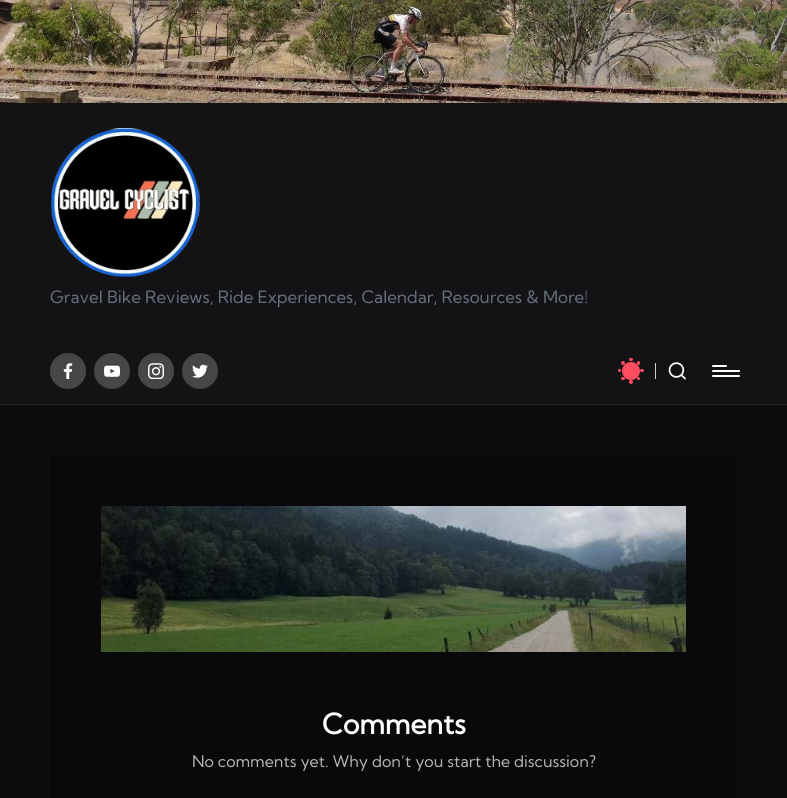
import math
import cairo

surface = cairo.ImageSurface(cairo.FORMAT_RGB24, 787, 798)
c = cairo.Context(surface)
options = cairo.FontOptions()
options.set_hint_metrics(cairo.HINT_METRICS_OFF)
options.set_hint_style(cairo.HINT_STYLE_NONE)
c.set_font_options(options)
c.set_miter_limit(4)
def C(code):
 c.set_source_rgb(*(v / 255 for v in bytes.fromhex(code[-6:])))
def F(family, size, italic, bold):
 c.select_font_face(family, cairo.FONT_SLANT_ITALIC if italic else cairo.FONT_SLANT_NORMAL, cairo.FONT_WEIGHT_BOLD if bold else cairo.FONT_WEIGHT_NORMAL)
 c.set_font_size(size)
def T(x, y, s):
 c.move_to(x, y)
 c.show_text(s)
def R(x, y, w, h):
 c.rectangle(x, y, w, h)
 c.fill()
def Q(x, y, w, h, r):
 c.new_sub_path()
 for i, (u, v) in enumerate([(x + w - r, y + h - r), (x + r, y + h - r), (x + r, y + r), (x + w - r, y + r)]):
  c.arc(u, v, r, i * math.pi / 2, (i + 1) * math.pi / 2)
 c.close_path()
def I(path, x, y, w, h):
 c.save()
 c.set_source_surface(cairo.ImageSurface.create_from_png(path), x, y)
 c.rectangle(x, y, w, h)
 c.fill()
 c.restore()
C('0d0d0f')
c.paint()
I('1.png',0,0,787,103)
C('131315')
R(0,103,787,301)
C('262628')
R(0,404,787,1)
I('2.png',50,128,150,150)
F('Kumbh Sans',17,0,0)
C('66717f')
T(50,303,'Gravel Bike Reviews, Ride Experiences, Calendar, Resources & More!')
C('464648')
c.new_path()
c.arc(68,371,18,0,2 * math.pi)
c.fill()
I('3.png',63,363,10,16)
c.arc(112,371,18,0,2 * math.pi)
c.fill()
I('4.png',104,365,16,12)
c.arc(156,371,18,0,2 * math.pi)
c.fill()
I('5.png',148,363,16,16)
c.arc(200,371,18,0,2 * math.pi)
c.fill()
I('6.png',192,364,16,14)
C('ff4c60')
Q(637,361,3,4,1.5)
c.fill()
Q(621,377,4,3,1.5)
c.fill()
c.arc(638.5,378.5,1.5,0,2 * math.pi)
c.fill()
c.arc(623,363,2,0,2 * math.pi)
c.fill()
c.arc(631,382,2,0,2 * math.pi)
c.fill()
Q(629,358,4,3,1.5)
c.fill()
Q(640,369,4,3,1.5)
c.fill()
c.arc(619.5,370.5,1.5,0,2 * math.pi)
c.fill()
c.arc(631,371,9,0,2 * math.pi)
c.fill()
C('cccccc')
R(655,363,1,16)
I('7.png',668,362,18,18)
C('ffffff')
Q(712,370,28,2,1)
c.fill()
Q(712,365,15,2,1)
c.fill()
Q(712,375,28,2,1)
c.fill()
C('09090b')
Q(50,455,687,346,3)
c.fill()
I('8.png',101,506,585,146)
F('Kumbh Sans',28,0,1)
C('ffffff')
T(322,734,'Comments')
F('Kumbh Sans',16,0,0)
C('b5b5b6')
T(192,767,'No comments yet. Why don’t you start the discussion?')
surface.write_to_png('o.png')
